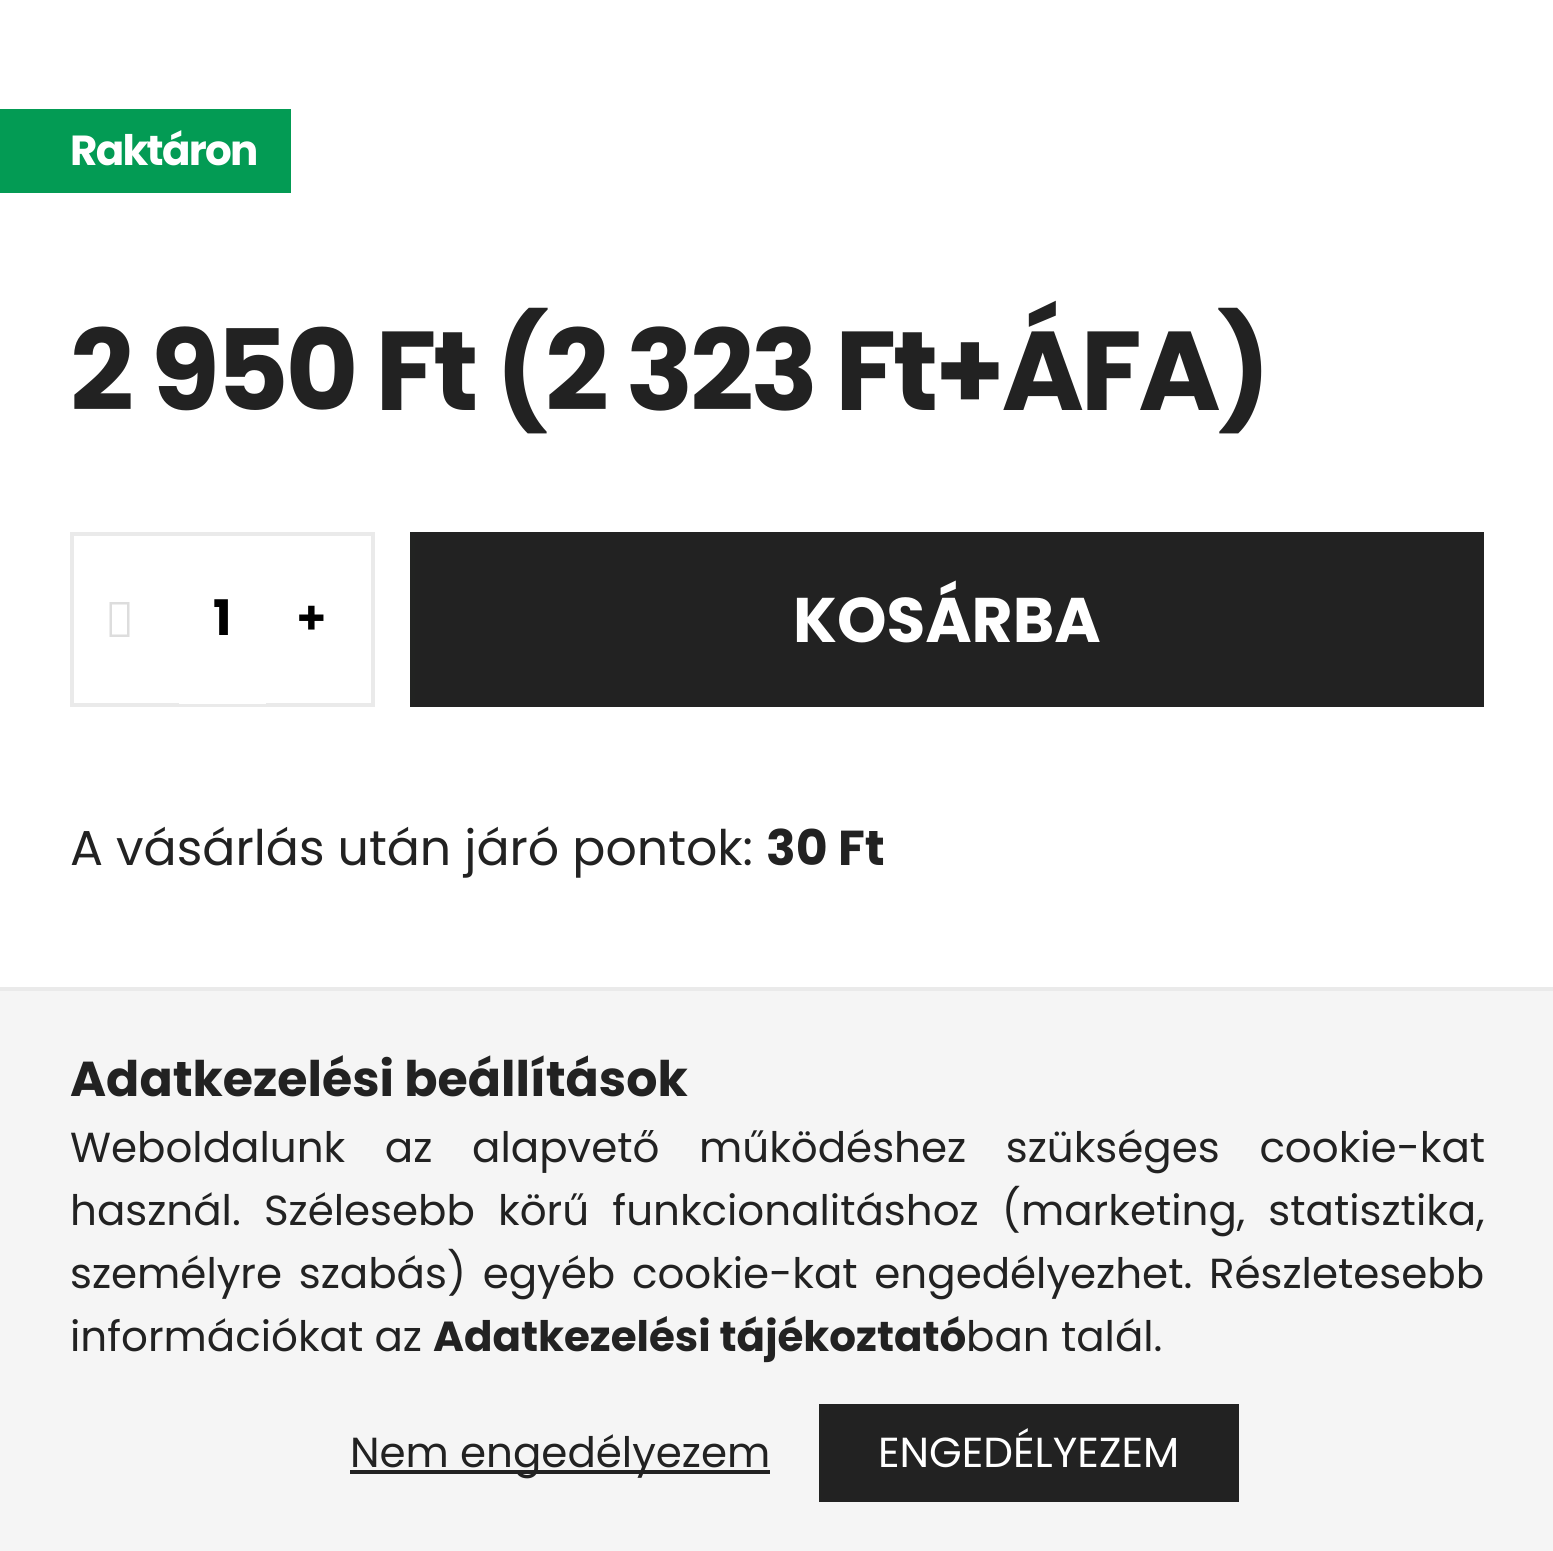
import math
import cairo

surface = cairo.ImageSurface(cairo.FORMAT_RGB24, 1553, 1551)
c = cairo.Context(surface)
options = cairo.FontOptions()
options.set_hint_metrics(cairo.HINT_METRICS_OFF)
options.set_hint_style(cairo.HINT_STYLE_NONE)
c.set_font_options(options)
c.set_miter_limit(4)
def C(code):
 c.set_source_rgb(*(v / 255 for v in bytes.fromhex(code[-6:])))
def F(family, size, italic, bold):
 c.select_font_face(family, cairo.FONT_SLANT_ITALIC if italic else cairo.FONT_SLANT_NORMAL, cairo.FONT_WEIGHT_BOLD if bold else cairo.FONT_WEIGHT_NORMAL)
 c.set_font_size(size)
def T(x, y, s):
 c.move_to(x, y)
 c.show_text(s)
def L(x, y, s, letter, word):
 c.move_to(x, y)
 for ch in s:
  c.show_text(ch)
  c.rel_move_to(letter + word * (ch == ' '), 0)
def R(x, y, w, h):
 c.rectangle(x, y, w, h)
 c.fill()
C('ffffff')
c.paint()
C('039b54')
R(0,109,291,84)
F('Poppins',42,0,1)
C('ffffff')
L(70,165,'Raktáron',-1.75,0)
F('Poppins',112,0,1)
C('222222')
L(70,410,'2 950 Ft (2 323 Ft+ÁFA)',-3.5,0)
c.rectangle(72,534,301,171)
C('eaeaea')
c.set_line_width(4)
c.stroke()
C('dddddd')
c.new_path()
c.move_to(109.5,637)
c.line_to(109.5,602)
c.line_to(129.5,602)
c.line_to(129.5,637)
c.close_path()
c.move_to(112,634.5)
c.line_to(127,634.5)
c.line_to(127,604.5)
c.line_to(112,604.5)
c.close_path()
c.fill()
C('ffffff')
R(179,703,87,1)
F('Poppins',49,0,1)
C('000000')
T(213,635,'1')
F('Noto Sans Black',49,0,0)
T(297,635,'+')
gradient = cairo.LinearGradient(-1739,620,1484,619)
gradient.add_color_stop_rgba(0,0.012,0.608,0.329,1)
gradient.add_color_stop_rgba(.33,0.012,0.608,0.329,1)
gradient.add_color_stop_rgba(.67,0.133,0.133,0.133,1)
gradient.add_color_stop_rgba(1,0.133,0.133,0.133,1)
c.set_source(gradient)
R(410,532,1074,175)
F('Poppins',63,0,1)
C('ffffff')
T(793,642,'KOSÁRBA')
F('Poppins',49,0,0)
C('222222')
T(70,865,'A vásárlás után járó pontok:')
F('Poppins',49,0,1)
T(766,865,'30 Ft')
C('f5f5f5')
R(0,991,1553,560)
C('eaeaea')
R(0,987,1553,4)
C('222222')
T(70,1096,'Adatkezelési beállítások')
F('Poppins',42,0,0)
L(70,1162,'Weboldalunk az alapvető működéshez szükséges cookie-kat',0,28.5)
L(70,1225,'használ. Szélesebb körű funkcionalitáshoz (marketing, statisztika,',0,12)
L(70,1288,'személyre szabás) egyéb cookie-kat engedélyezhet. Részletesebb',0,5.5)
T(70,1351,'információkat az')
F('Poppins',42,0,1)
T(433,1351,'Adatkezelési tájékoztató')
F('Poppins',42,0,0)
T(966,1351,'ban talál.')
R(350,1470,420,4)
T(350,1467,'Nem engedélyezem')
gradient = cairo.LinearGradient(-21,1453,1239,1453)
gradient.add_color_stop_rgba(0,0.012,0.608,0.329,1)
gradient.add_color_stop_rgba(.33,0.012,0.608,0.329,1)
gradient.add_color_stop_rgba(.67,0.133,0.133,0.133,1)
gradient.add_color_stop_rgba(1,0.133,0.133,0.133,1)
c.set_source(gradient)
R(819,1404,420,98)
C('ffffff')
T(878,1467,'ENGEDÉLYEZEM')
surface.write_to_png('o.png')
